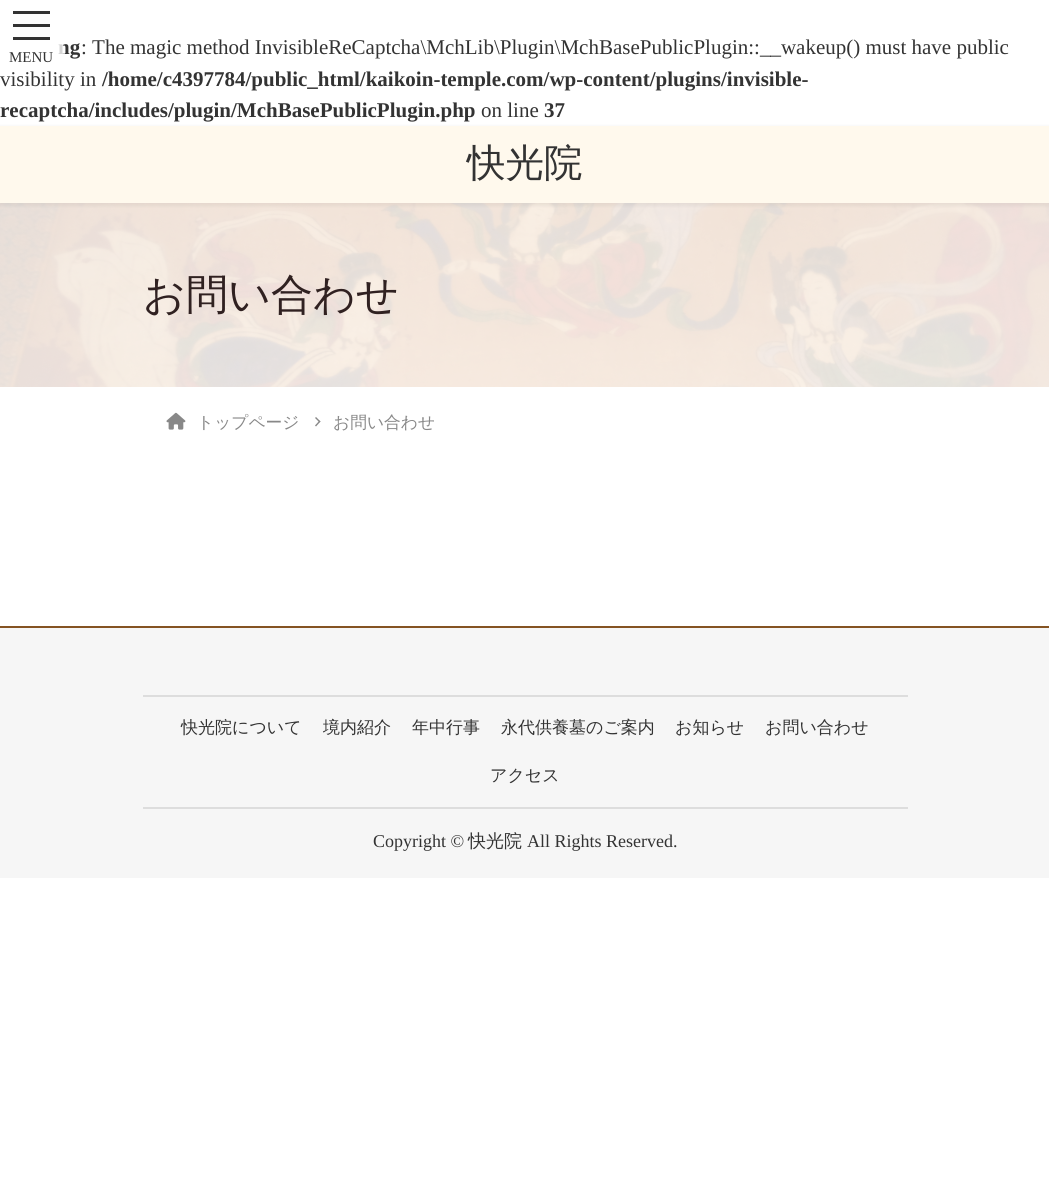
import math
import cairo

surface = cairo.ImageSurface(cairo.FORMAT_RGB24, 1049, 1180)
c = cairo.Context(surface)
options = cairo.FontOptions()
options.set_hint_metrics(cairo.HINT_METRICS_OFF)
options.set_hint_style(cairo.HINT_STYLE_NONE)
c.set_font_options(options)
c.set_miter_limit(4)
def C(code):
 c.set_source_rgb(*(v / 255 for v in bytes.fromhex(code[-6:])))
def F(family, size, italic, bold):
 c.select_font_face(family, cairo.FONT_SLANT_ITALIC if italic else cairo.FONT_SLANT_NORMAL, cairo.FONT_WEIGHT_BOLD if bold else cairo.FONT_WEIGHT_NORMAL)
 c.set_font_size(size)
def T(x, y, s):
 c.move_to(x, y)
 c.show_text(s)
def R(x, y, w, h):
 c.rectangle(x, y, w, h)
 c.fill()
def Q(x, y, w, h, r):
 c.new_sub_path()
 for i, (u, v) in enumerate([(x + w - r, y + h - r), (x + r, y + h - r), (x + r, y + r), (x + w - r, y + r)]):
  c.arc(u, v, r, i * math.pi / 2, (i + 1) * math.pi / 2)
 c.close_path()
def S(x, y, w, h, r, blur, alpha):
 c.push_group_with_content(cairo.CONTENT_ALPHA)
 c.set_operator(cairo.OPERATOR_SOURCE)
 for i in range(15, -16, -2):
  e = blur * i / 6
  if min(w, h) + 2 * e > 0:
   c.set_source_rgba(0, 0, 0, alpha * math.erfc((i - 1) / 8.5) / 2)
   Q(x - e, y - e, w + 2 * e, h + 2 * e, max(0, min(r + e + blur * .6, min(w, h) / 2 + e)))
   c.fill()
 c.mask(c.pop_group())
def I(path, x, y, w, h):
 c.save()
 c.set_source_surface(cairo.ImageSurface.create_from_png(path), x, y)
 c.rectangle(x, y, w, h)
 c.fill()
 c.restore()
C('ffffff')
c.paint()
F('Liberation Serif',21,0,1)
C('333333')
T(58,54,'ng')
c.set_source_rgba(1,1,1,0.8)
R(58,44,5,10)
C('333333')
R(13,11,37,3)
R(13,24,37,3)
R(13,37,37,3)
F('Liberation Serif',15,0,0)
T(9,62,'MENU')
F('Liberation Serif',21,0,0)
T(81,54,': The magic method InvisibleReCaptcha\\MchLib\\Plugin\\MchBasePublicPlugin::__wakeup() must have public')
T(0,86,'visibility in')
F('Liberation Serif',21,0,1)
T(102,86,'/home/c4397784/public_html/kaikoin-temple.com/wp-content/plugins/invisible-')
T(0,117,'recaptcha/includes/plugin/MchBasePublicPlugin.php')
F('Liberation Serif',21,0,0)
T(481,117,'on line')
F('Liberation Serif',21,0,1)
T(544,117,'37')
I('1.png',0,203,1049,184)
C('000000')
S(-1,126,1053,80,0,1.5,.05)
C('fff9ed')
R(0,126,1049,77)
F('WenQuanYi Zen Hei Medium',38.5,0,0)
C('333333')
T(467,176,'快光院')
F('WenQuanYi Zen Hei Medium',42,0,0)
C('302121')
T(143,309,'お問い合わせ')
I('2.png',166,412,20,18)
F('WenQuanYi Zen Hei Medium',16.75,0,0)
C('888888')
T(197,428,'トップページ')
c.new_path()
c.move_to(316,417)
c.line_to(320.5,421.5)
c.line_to(319.5,422.5)
c.line_to(315,418)
c.close_path()
c.fill()
c.new_path()
c.move_to(319.5,420.5)
c.line_to(320.5,421.5)
c.line_to(316,426.5)
c.line_to(315,425.5)
c.close_path()
c.fill()
T(333,428,'お問い合わせ')
C('f6f6f6')
R(0,628,1049,250)
C('845322')
R(0,626,1049,2)
C('dddddd')
R(143,695,765,2)
R(143,807,765,2)
F('WenQuanYi Zen Hei Medium',17,0,0)
C('333333')
T(181,733,'快光院について')
T(323,733,'境内紹介')
T(412,733,'年中行事')
T(501,733,'永代供養墓のご案内')
T(675,733,'お知らせ')
T(765,733,'お問い合わせ')
T(490,781,'アクセス')
F('Liberation Serif',18,0,0)
T(373,847,'Copyright ©')
F('WenQuanYi Zen Hei Medium',18,0,0)
T(468,847,'快光院')
F('Liberation Serif',18,0,0)
T(527,847,'All Rights Reserved.')
surface.write_to_png('o.png')
